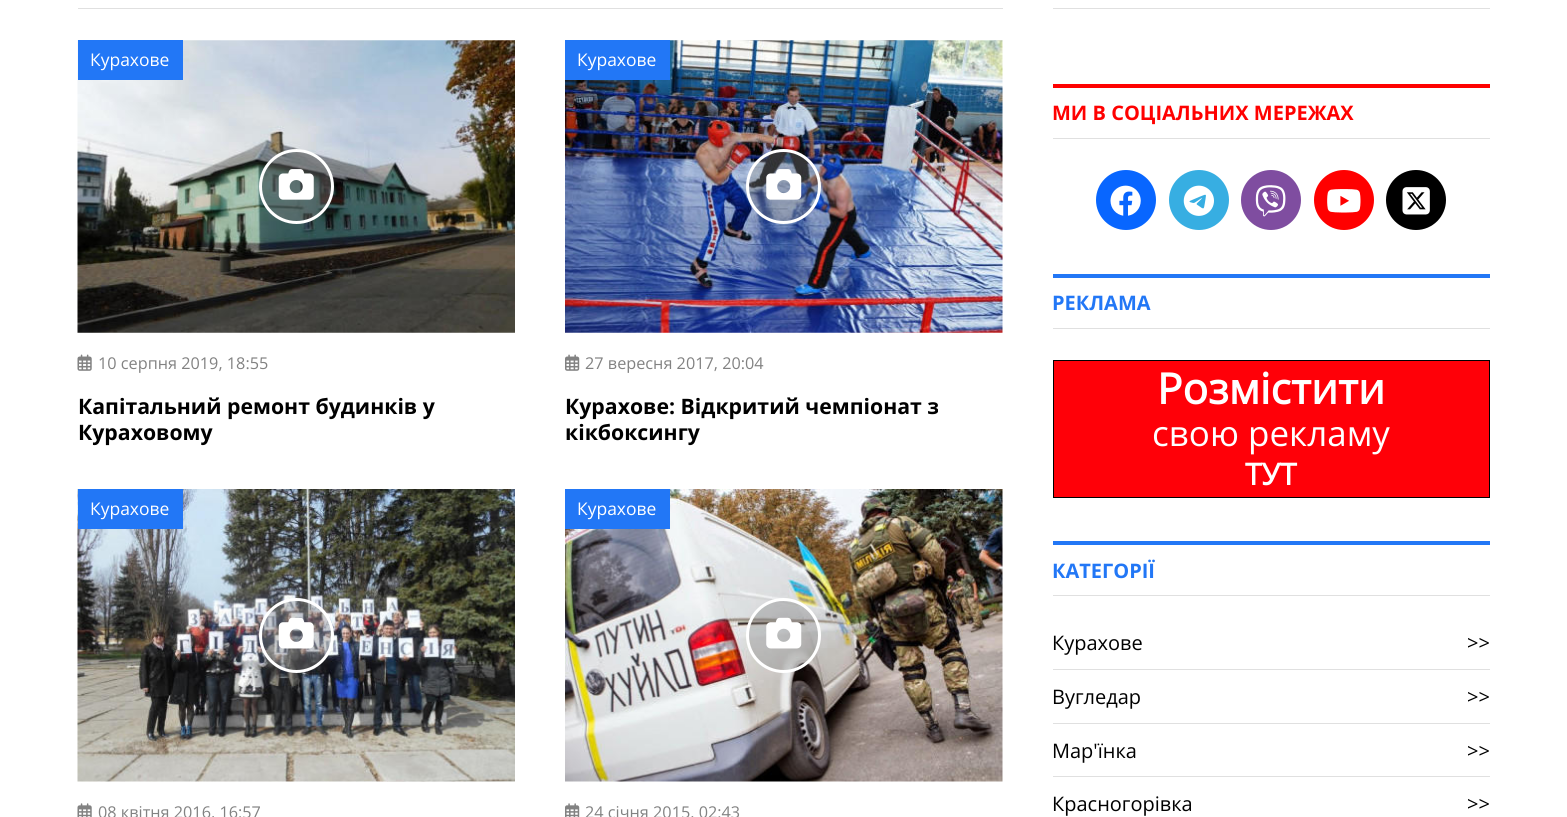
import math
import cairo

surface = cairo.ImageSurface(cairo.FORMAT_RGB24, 1567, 817)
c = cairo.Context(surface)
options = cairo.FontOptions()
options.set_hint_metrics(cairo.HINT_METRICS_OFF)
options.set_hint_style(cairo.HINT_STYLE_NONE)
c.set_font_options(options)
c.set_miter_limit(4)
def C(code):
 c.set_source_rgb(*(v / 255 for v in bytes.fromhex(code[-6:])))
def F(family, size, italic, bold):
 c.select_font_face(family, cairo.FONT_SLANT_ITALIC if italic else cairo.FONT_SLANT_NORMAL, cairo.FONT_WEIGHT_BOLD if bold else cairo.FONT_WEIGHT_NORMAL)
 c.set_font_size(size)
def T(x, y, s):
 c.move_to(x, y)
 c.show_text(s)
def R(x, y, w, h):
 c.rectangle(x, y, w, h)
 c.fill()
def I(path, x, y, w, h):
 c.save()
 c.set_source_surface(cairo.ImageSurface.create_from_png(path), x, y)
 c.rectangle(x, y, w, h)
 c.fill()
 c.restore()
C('ffffff')
c.paint()
C('e0e0e0')
R(78,8,925,1)
I('1.png',77,40,438,293)
C('2277f6')
R(78,40,105,40)
F('Open Sans',17.5,0,0)
C('ffffff')
T(90,66,'Курахове')
c.set_source_rgba(0.51,0.51,0.51,0.35)
c.new_path()
c.arc(296.5,186.5,36,0,2 * math.pi)
c.fill_preserve()
C('ffffff')
c.set_line_width(3)
c.stroke()
I('2.png',278,169,36,31)
I('3.png',77,354,15,17)
F('Open Sans',16.25,0,0)
C('828282')
T(98,369,'10 серпня 2019, 18:55')
F('Open Sans',21.25,0,1)
C('000000')
T(78,414,'Капітальний ремонт будинків у')
T(78,440,'Кураховому')
I('4.png',565,40,438,293)
C('2277f6')
R(565,40,105,40)
F('Open Sans',17.5,0,0)
C('ffffff')
T(577,66,'Курахове')
c.set_source_rgba(0.51,0.51,0.51,0.35)
c.new_path()
c.arc(783.5,186.5,36,0,2 * math.pi)
c.fill_preserve()
C('ffffff')
c.stroke()
I('5.png',766,169,36,31)
I('6.png',565,354,15,17)
F('Open Sans',16.25,0,0)
C('828282')
T(585,369,'27 вересня 2017, 20:04')
F('Open Sans',21.25,0,1)
C('000000')
T(565,414,'Курахове: Відкритий чемпіонат з')
T(565,440,'кікбоксингу')
I('7.png',77,489,438,293)
C('2277f6')
R(78,489,105,40)
F('Open Sans',17.5,0,0)
C('ffffff')
T(90,515,'Курахове')
c.set_source_rgba(0.51,0.51,0.51,0.35)
c.new_path()
c.arc(296.5,635.5,36,0,2 * math.pi)
c.fill_preserve()
C('ffffff')
c.stroke()
I('8.png',278,617,36,32)
I('9.png',77,803,15,14)
F('Open Sans',16.25,0,0)
C('828282')
T(98,818,'08 квітня 2016, 16:57')
I('10.png',565,489,438,293)
C('2277f6')
R(565,489,105,40)
F('Open Sans',17.5,0,0)
C('ffffff')
T(577,515,'Курахове')
c.set_source_rgba(0.51,0.51,0.51,0.35)
c.new_path()
c.arc(783.5,635.5,36,0,2 * math.pi)
c.fill_preserve()
C('ffffff')
c.stroke()
I('11.png',766,617,36,32)
I('12.png',565,803,15,14)
F('Open Sans',16.25,0,0)
C('828282')
T(585,818,'24 січня 2015, 02:43')
C('e0e0e0')
R(1053,8,437,1)
C('ff0100')
R(1053,84,437,4)
C('e0e0e0')
R(1053,138,437,1)
F('Open Sans',20,0,1)
C('ff0100')
T(1052,120,'МИ В СОЦІАЛЬНИХ МЕРЕЖАХ')
C('0866ff')
c.new_path()
c.arc(1126,200,30,0,2 * math.pi)
c.fill()
I('13.png',1110,185,31,31)
C('37aee2')
c.arc(1199,200,30,0,2 * math.pi)
c.fill()
I('14.png',1183,185,31,31)
C('7f4da0')
c.arc(1271,200,30,0,2 * math.pi)
c.fill()
I('15.png',1255,185,31,32)
C('ff0000')
c.arc(1344,200,30,0,2 * math.pi)
c.fill()
I('16.png',1327,189,34,24)
C('000000')
c.arc(1416,200,30,0,2 * math.pi)
c.fill()
I('17.png',1402,187,28,28)
C('2277f6')
R(1053,274,437,4)
C('e0e0e0')
R(1053,328,437,1)
C('2277f6')
T(1052,310,'РЕКЛАМА')
C('ff0008')
R(1054,361,435,136)
c.rectangle(1053.5,360.5,436,137)
C('000000')
c.set_line_width(1)
c.stroke()
F('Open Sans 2',42.5,0,1)
C('ffffff')
T(1157,404,'Розмістити')
F('Open Sans',35,0,0)
T(1152,446,'свою рекламу')
F('Open Sans 2',30,0,1)
T(1245,485,'ТУТ')
C('2277f6')
R(1053,541,437,4)
C('e0e0e0')
R(1053,595,437,1)
F('Open Sans',20,0,1)
C('2277f6')
T(1052,578,'КАТЕГОРІЇ')
C('e0e0e0')
R(1053,669,437,1)
F('Open Sans',20,0,0)
C('000000')
T(1052,650,'Курахове')
T(1467,650,'>>')
C('e0e0e0')
R(1053,723,437,1)
C('000000')
T(1052,704,'Вугледар')
T(1467,704,'>>')
C('e0e0e0')
R(1053,776,437,1)
C('000000')
T(1052,758,'Мар\'їнка')
T(1467,758,'>>')
T(1052,811,'Красногорівка')
T(1467,811,'>>')
surface.write_to_png('o.png')
